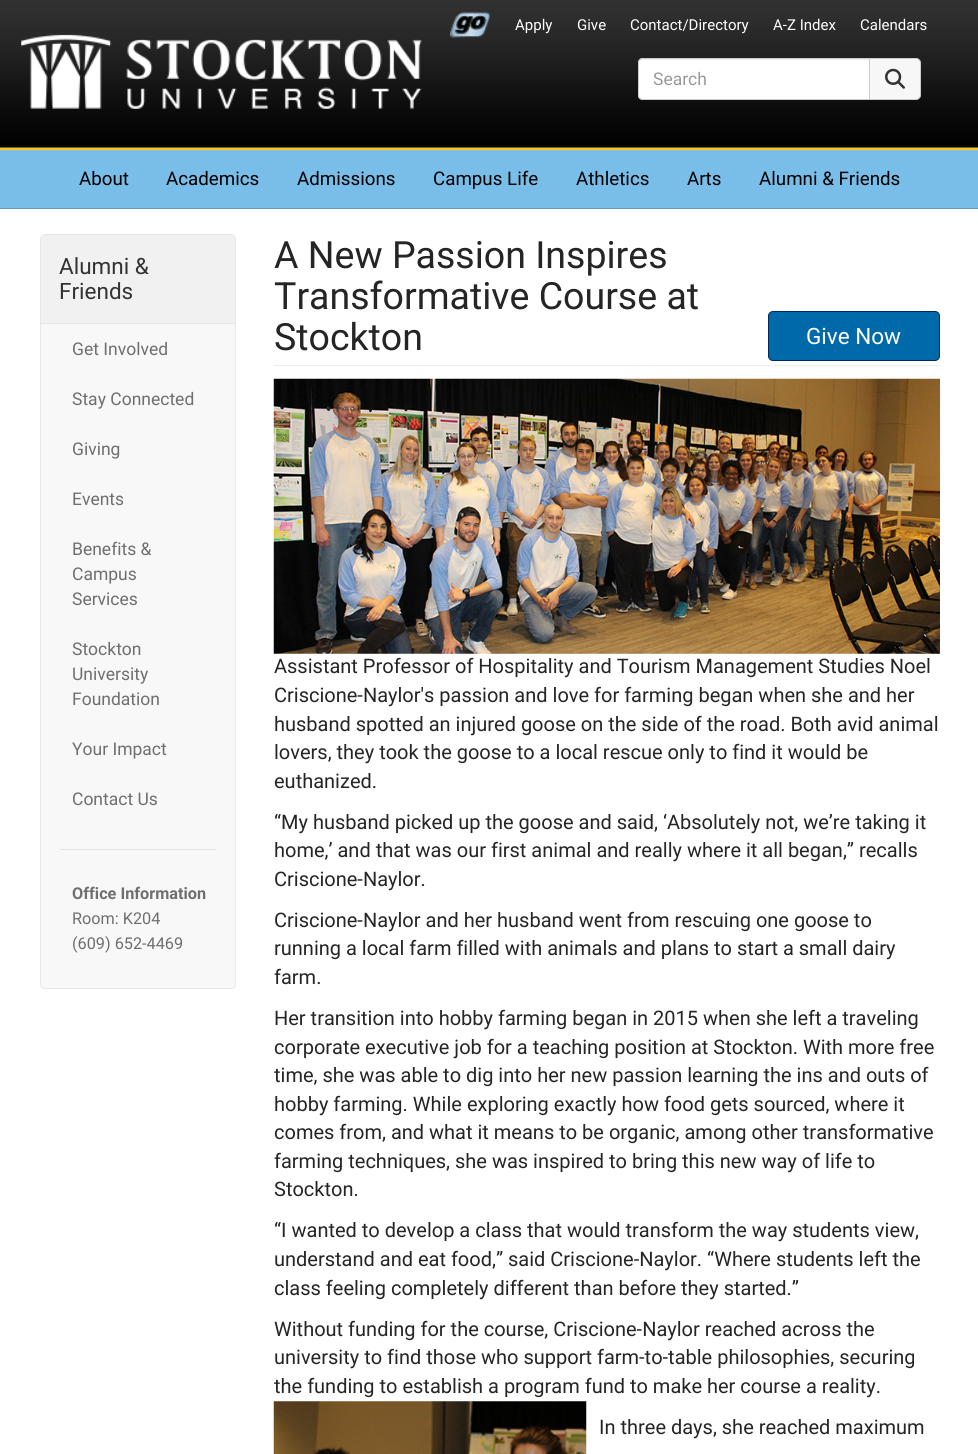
import math
import cairo

surface = cairo.ImageSurface(cairo.FORMAT_RGB24, 978, 1454)
c = cairo.Context(surface)
options = cairo.FontOptions()
options.set_hint_metrics(cairo.HINT_METRICS_OFF)
options.set_hint_style(cairo.HINT_STYLE_NONE)
c.set_font_options(options)
c.set_miter_limit(4)
def C(code):
 c.set_source_rgb(*(v / 255 for v in bytes.fromhex(code[-6:])))
def F(family, size, italic, bold):
 c.select_font_face(family, cairo.FONT_SLANT_ITALIC if italic else cairo.FONT_SLANT_NORMAL, cairo.FONT_WEIGHT_BOLD if bold else cairo.FONT_WEIGHT_NORMAL)
 c.set_font_size(size)
def T(x, y, s):
 c.move_to(x, y)
 c.show_text(s)
def R(x, y, w, h):
 c.rectangle(x, y, w, h)
 c.fill()
def Q(x, y, w, h, r):
 c.new_sub_path()
 for i, (u, v) in enumerate([(x + w - r, y + h - r), (x + r, y + h - r), (x + r, y + r), (x + w - r, y + r)]):
  c.arc(u, v, r, i * math.pi / 2, (i + 1) * math.pi / 2)
 c.close_path()
def I(path, x, y, w, h):
 c.save()
 c.set_source_surface(cairo.ImageSurface.create_from_png(path), x, y)
 c.rectangle(x, y, w, h)
 c.fill()
 c.restore()
C('79bde9')
c.paint()
I('1.png',0,0,978,151)
C('619bc5')
R(0,208,978,1)
I('2.png',450,12,40,26)
F('Roboto',15,0,0)
C('ffffff')
T(515,30,'Apply')
T(577,30,'Give')
T(630,30,'Contact/Directory')
T(773,30,'A-Z Index')
T(860,30,'Calendars')
I('3.png',21,34,401,75)
c.new_path()
c.move_to(643,58)
c.line_to(870,58)
c.line_to(870,100)
c.line_to(643,100)
c.curve_to(640,100,638,98,638,95)
c.line_to(638,63)
c.curve_to(638,60,640,58,643,58)
c.close_path()
c.fill()
C('ececec')
c.new_path()
c.move_to(642,60)
c.line_to(869,60)
c.line_to(869,59)
c.line_to(643,59)
c.curve_to(640,59,639,61,639,64)
c.curve_to(639,62,640,60,642,60)
c.close_path()
c.fill()
c.new_path()
c.move_to(643,58.5)
c.line_to(869.5,58.5)
c.line_to(869.5,99.5)
c.line_to(643,99.5)
c.curve_to(640.5,99.5,638.5,97.5,638.5,95)
c.line_to(638.5,63)
c.curve_to(638.5,60.5,640.5,58.5,643,58.5)
c.close_path()
C('cccccc')
c.set_line_width(1)
c.stroke()
F('Roboto',17.5,0,0)
C('999999')
T(653,85,'Search')
C('f7f7f7')
c.new_path()
c.move_to(869.5,58.5)
c.line_to(916,58.5)
c.curve_to(918.5,58.5,920.5,60.5,920.5,63)
c.line_to(920.5,95)
c.curve_to(920.5,97.5,918.5,99.5,916,99.5)
c.line_to(869.5,99.5)
c.close_path()
c.fill_preserve()
C('cccccc')
c.stroke()
I('4.png',885,68,20,21)
F('Roboto',18.75,0,0)
C('000000')
T(79,185,'About')
T(166,185,'Academics')
T(297,185,'Admissions')
T(433,185,'Campus Life')
T(576,185,'Athletics')
T(687,185,'Arts')
T(759,185,'Alumni & Friends')
C('ffffff')
R(0,209,978,1245)
C('f8f8f8')
Q(40.5,234.5,195,754,4.5)
c.fill_preserve()
C('e7e7e7')
c.stroke()
C('f1f1f1')
R(41,235,194,88)
C('e7e7e7')
R(41,323,194,1)
F('Roboto',22.5,0,0)
C('333333')
T(59,274,'Alumni &')
T(59,299,'Friends')
F('Roboto',17.5,0,0)
C('6f6f6f')
T(72,355,'Get Involved')
T(72,405,'Stay Connected')
T(72,455,'Giving')
T(72,505,'Events')
T(72,555,'Benefits &')
T(72,580,'Campus')
T(72,605,'Services')
T(72,655,'Stockton')
T(72,680,'University')
T(72,705,'Foundation')
T(72,755,'Your Impact')
T(72,805,'Contact Us')
C('e4e4e4')
R(60,849,156,1)
F('Roboto',16.25,0,1)
C('6f6f6f')
T(72,899,'Office Information')
F('Roboto',16.25,0,0)
T(72,924,'Room: K204')
T(72,949,'(609) 652-4469')
C('eeeeee')
R(274,365,666,1)
F('Roboto',37.5,0,0)
C('252525')
T(274,268,'A New Passion Inspires')
T(274,309,'Transformative Course at')
T(274,350,'Stockton')
C('0069aa')
Q(768.5,311.5,171,49,4.5)
c.fill_preserve()
C('002a5c')
c.stroke()
F('Roboto',22.5,0,0)
C('ffffff')
T(806,344,'Give Now')
I('5.png',273,378,667,276)
F('Roboto',20,0,0)
C('252525')
T(274,673,'Assistant Professor of Hospitality and Tourism Management Studies Noel')
T(274,702,'Criscione-Naylor\'s passion and love for farming began when she and her')
T(274,731,'husband spotted an injured goose on the side of the road. Both avid animal')
T(274,759,'lovers, they took the goose to a local rescue only to find it would be')
T(274,788,'euthanized.')
T(274,829,'“My husband picked up the goose and said, ‘Absolutely not, we’re taking it')
T(274,857,'home,’ and that was our first animal and really where it all began,” recalls')
T(274,886,'Criscione-Naylor.')
T(274,927,'Criscione-Naylor and her husband went from rescuing one goose to')
T(274,955,'running a local farm filled with animals and plans to start a small dairy')
T(274,984,'farm.')
T(274,1025,'Her transition into hobby farming began in 2015 when she left a traveling')
T(274,1054,'corporate executive job for a teaching position at Stockton. With more free')
T(274,1082,'time, she was able to dig into her new passion learning the ins and outs of')
T(274,1111,'hobby farming. While exploring exactly how food gets sourced, where it')
T(274,1139,'comes from, and what it means to be organic, among other transformative')
T(274,1168,'farming techniques, she was inspired to bring this new way of life to')
T(274,1196,'Stockton.')
T(274,1237,'“I wanted to develop a class that would transform the way students view,')
T(274,1266,'understand and eat food,” said Criscione-Naylor. “Where students left the')
T(274,1295,'class feeling completely different than before they started.”')
T(274,1336,'Without funding for the course, Criscione-Naylor reached across the')
T(274,1364,'university to find those who support farm-to-table philosophies, securing')
T(274,1393,'the funding to establish a program fund to make her course a reality.')
I('6.png',273,1401,314,53)
T(599,1434,'In three days, she reached maximum')
surface.write_to_png('o.png')
